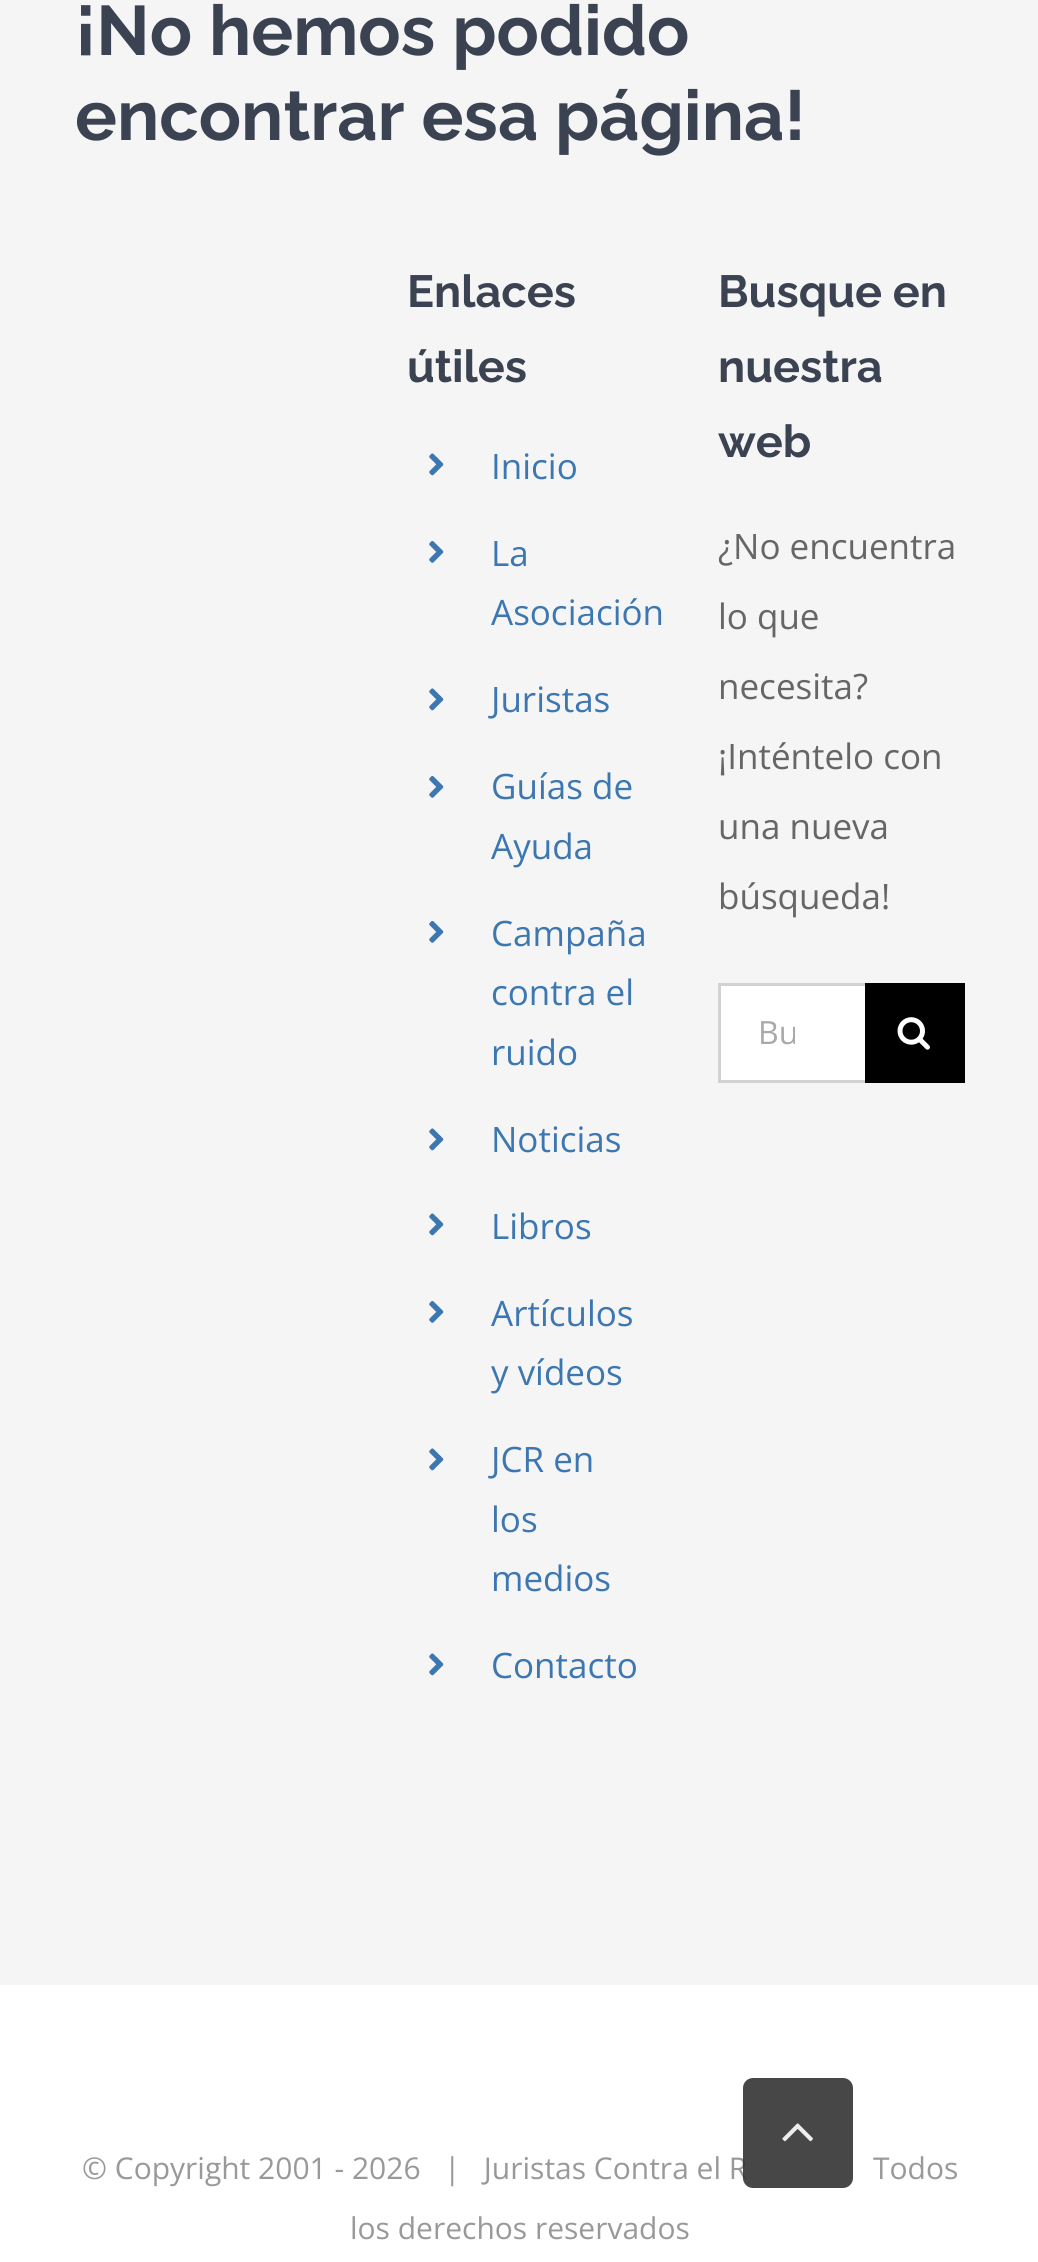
import math
import cairo

surface = cairo.ImageSurface(cairo.FORMAT_RGB24, 1038, 2262)
c = cairo.Context(surface)
options = cairo.FontOptions()
options.set_hint_metrics(cairo.HINT_METRICS_OFF)
options.set_hint_style(cairo.HINT_STYLE_NONE)
c.set_font_options(options)
c.set_miter_limit(4)
def C(code):
 c.set_source_rgb(*(v / 255 for v in bytes.fromhex(code[-6:])))
def F(family, size, italic, bold):
 c.select_font_face(family, cairo.FONT_SLANT_ITALIC if italic else cairo.FONT_SLANT_NORMAL, cairo.FONT_WEIGHT_BOLD if bold else cairo.FONT_WEIGHT_NORMAL)
 c.set_font_size(size)
def T(x, y, s):
 c.move_to(x, y)
 c.show_text(s)
def R(x, y, w, h):
 c.rectangle(x, y, w, h)
 c.fill()
def Q(x, y, w, h, r):
 c.new_sub_path()
 for i, (u, v) in enumerate([(x + w - r, y + h - r), (x + r, y + h - r), (x + r, y + r), (x + w - r, y + r)]):
  c.arc(u, v, r, i * math.pi / 2, (i + 1) * math.pi / 2)
 c.close_path()
def I(path, x, y, w, h):
 c.save()
 c.set_source_surface(cairo.ImageSurface.create_from_png(path), x, y)
 c.rectangle(x, y, w, h)
 c.fill()
 c.restore()
C('f5f5f5')
c.paint()
F('Raleway Thin',70,0,0)
C('3b4251')
T(75,55,'¡No hemos podido')
T(75,140,'encontrar esa página!')
F('Raleway Thin',45,0,0)
T(407,307,'Enlaces')
T(407,382,'útiles')
I('1.png',429,453,15,23)
F('Open Sans',35,0,0)
C('3d77b1')
T(491,479,'Inicio')
I('2.png',429,541,15,22)
T(491,566,'La')
T(491,625,'Asociación')
I('1.png',429,688,15,23)
T(491,712,'Juristas')
I('2.png',429,776,15,22)
T(491,799,'Guías de')
T(491,859,'Ayuda')
I('2.png',429,921,15,22)
T(491,946,'Campaña')
T(491,1005,'contra el')
T(491,1065,'ruido')
I('1.png',429,1128,15,23)
T(491,1152,'Noticias')
I('1.png',429,1213,15,23)
T(491,1239,'Libros')
I('2.png',429,1301,15,22)
T(491,1326,'Artículos')
T(491,1385,'y vídeos')
I('1.png',429,1448,15,23)
T(491,1472,'JCR en')
T(491,1532,'los')
T(491,1591,'medios')
I('1.png',429,1653,15,23)
T(491,1678,'Contacto')
F('Raleway Thin',45,0,0)
C('3b4251')
T(718,307,'Busque en')
T(718,382,'nuestra')
T(718,457,'web')
F('Open Sans',35,0,0)
C('666666')
T(718,559,'¿No encuentra')
T(718,629,'lo que')
T(718,699,'necesita?')
T(718,769,'¡Inténtelo con')
T(718,839,'una nueva')
T(718,909,'búsqueda!')
C('ffffff')
R(721,986,144,94)
C('d2d2d2')
R(718,983,147,3)
R(718,1080,147,3)
R(718,983,3,100)
c.save()
c.rectangle(758,1010,37,45)
c.clip()
F('Open Sans',32,0,0)
C('aaa9a9')
T(758,1044,'Bu')
c.restore()
C('000000')
R(865,983,100,100)
I('3.png',897,1017,33,33)
C('ffffff')
R(0,1985,1038,277)
F('Open Sans',30,0,0)
C('999999')
T(82,2179,'© Copyright 2001 - 2026   |   Juristas Contra el R')
T(873,2179,'Todos')
T(350,2239,'los derechos reservados')
c.set_source_rgba(0.2,0.2,0.2,0.9)
Q(743,2078,110,110,10)
c.fill()
I('4.png',782,2123,31,19)
surface.write_to_png('o.png')
